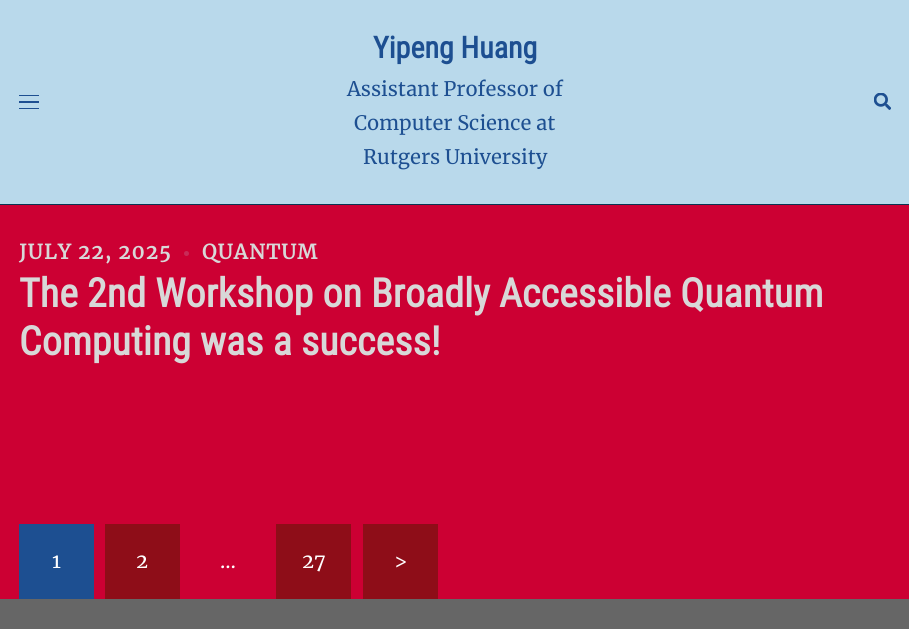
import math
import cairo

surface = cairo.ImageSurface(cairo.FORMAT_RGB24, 909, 629)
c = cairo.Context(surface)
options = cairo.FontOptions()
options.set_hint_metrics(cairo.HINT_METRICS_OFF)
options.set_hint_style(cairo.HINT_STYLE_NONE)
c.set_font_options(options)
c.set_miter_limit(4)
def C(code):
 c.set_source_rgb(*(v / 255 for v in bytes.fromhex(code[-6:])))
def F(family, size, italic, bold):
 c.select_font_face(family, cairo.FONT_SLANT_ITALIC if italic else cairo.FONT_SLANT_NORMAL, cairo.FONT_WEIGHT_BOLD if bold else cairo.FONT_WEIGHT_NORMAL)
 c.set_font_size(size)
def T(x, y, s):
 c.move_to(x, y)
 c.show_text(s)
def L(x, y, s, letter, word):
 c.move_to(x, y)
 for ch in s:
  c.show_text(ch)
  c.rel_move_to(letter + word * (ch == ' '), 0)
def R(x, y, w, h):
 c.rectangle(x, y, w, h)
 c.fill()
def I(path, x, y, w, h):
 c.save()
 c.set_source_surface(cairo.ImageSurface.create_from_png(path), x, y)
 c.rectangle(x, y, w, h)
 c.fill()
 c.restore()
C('cc0033')
c.paint()
C('b9d9eb')
R(0,0,909,204)
C('093552')
R(0,204,909,1)
C('1d4f91')
R(19,95,20,1)
R(19,101,20,2)
R(19,108,20,1)
F('Roboto Condensed',30,0,1)
T(373,58,'Yipeng Huang')
F('Merriweather',20,0,0)
T(347,96,'Assistant Professor of')
T(354,130,'Computer Science at')
T(363,164,'Rutgers University')
I('1.png',874,93,17,17)
F('Merriweather',20,0,1)
C('d8d8d8')
L(19,259,'JULY 22, 2025',1.25,0)
C('c82b58')
c.new_path()
c.arc(186.5,253.5,2.5,0,2 * math.pi)
c.fill()
C('d8d8d8')
L(202,259,'QUANTUM',1.25,0)
F('Roboto Condensed',40,0,1)
T(19,307,'The 2nd Workshop on Broadly Accessible Quantum')
T(19,355,'Computing was a success!')
C('1d4f91')
R(19,524,75,75)
F('Merriweather',20,0,0)
C('ffffff')
T(52,568,'1')
C('8e0d18')
R(105,524,75,75)
C('ffffff')
T(136,568,'2')
T(220,568,'…')
C('8e0d18')
R(276,524,75,75)
C('ffffff')
T(302,568,'27')
C('8e0d18')
R(363,524,75,75)
C('ffffff')
T(394,568,'>')
C('666666')
R(0,599,909,30)
surface.write_to_png('o.png')
